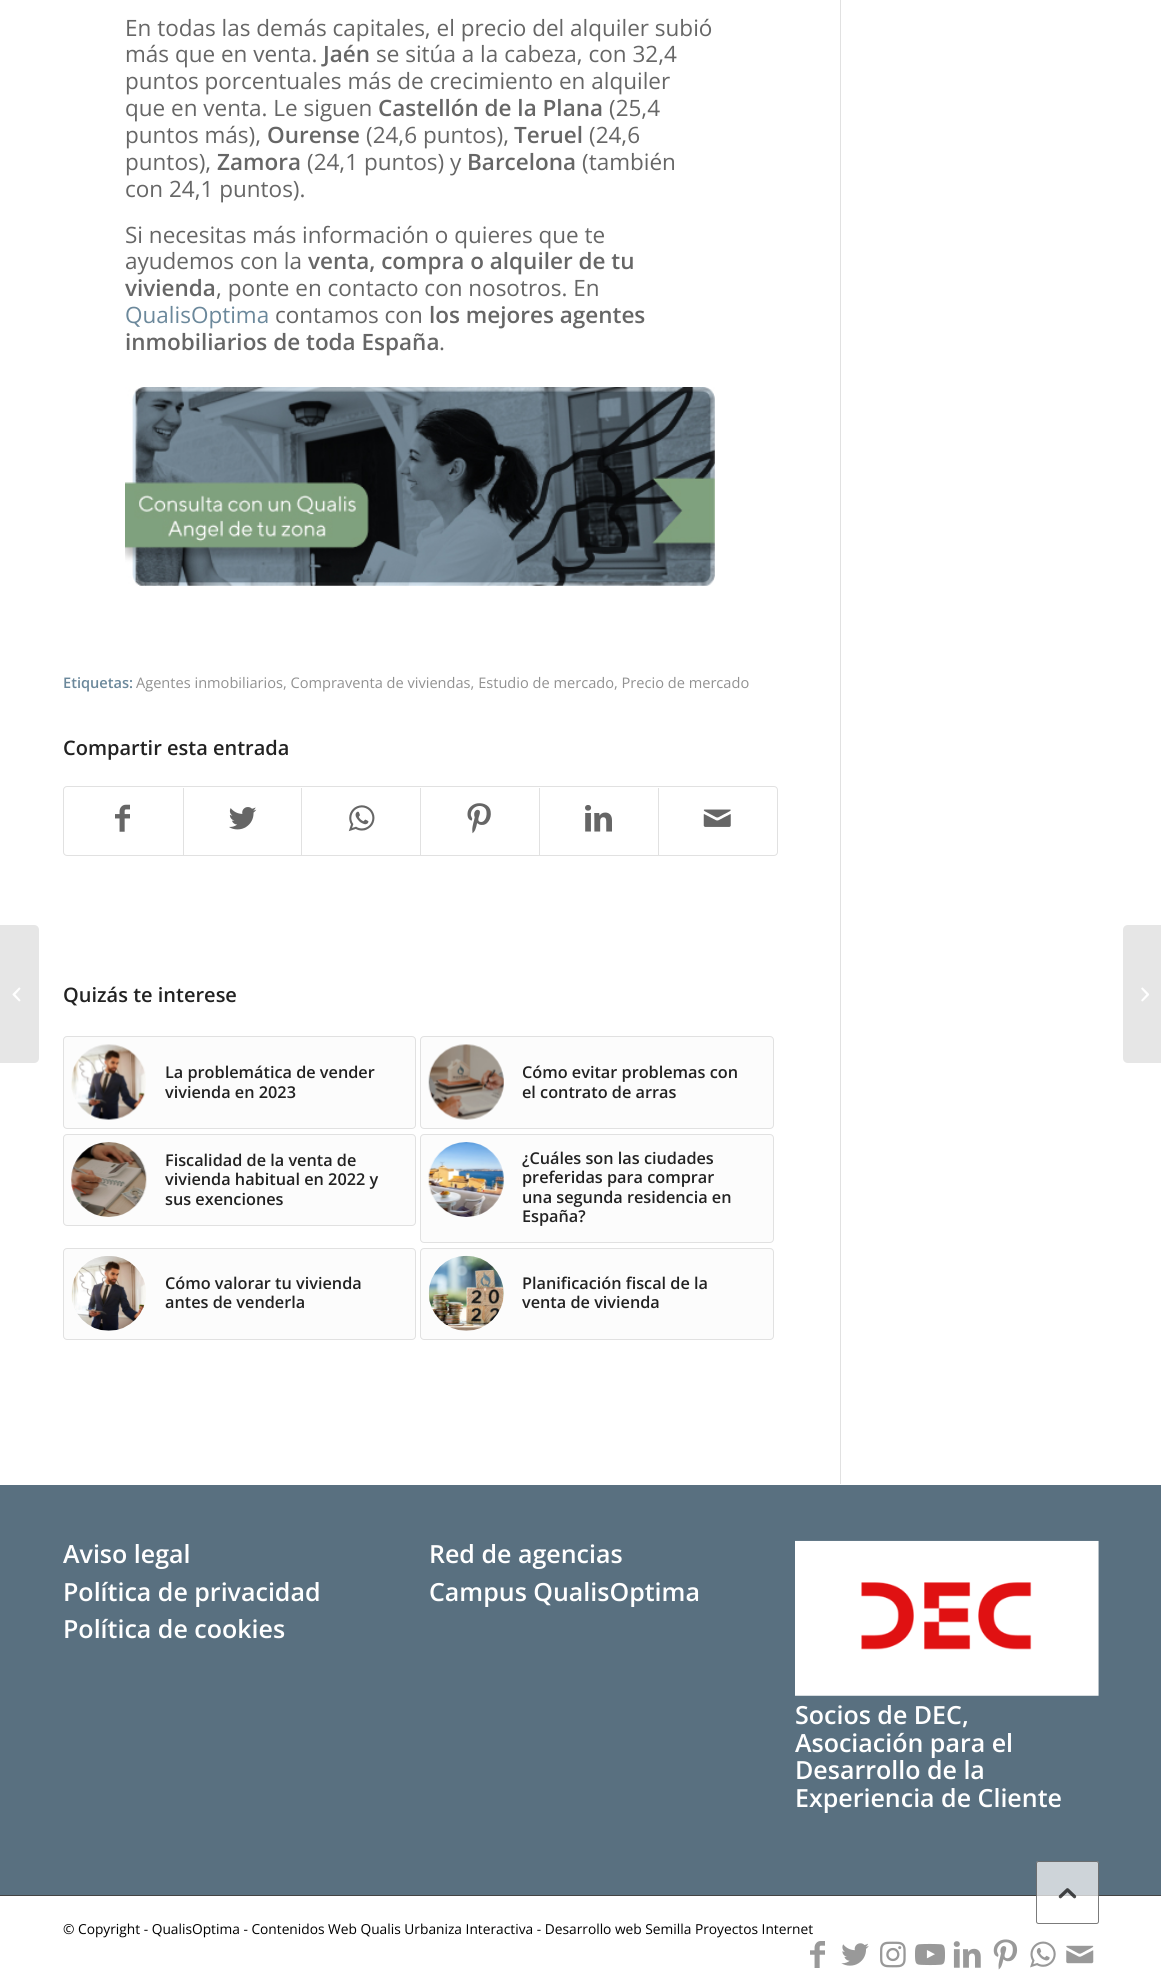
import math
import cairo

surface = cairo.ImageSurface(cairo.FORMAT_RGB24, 1161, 1986)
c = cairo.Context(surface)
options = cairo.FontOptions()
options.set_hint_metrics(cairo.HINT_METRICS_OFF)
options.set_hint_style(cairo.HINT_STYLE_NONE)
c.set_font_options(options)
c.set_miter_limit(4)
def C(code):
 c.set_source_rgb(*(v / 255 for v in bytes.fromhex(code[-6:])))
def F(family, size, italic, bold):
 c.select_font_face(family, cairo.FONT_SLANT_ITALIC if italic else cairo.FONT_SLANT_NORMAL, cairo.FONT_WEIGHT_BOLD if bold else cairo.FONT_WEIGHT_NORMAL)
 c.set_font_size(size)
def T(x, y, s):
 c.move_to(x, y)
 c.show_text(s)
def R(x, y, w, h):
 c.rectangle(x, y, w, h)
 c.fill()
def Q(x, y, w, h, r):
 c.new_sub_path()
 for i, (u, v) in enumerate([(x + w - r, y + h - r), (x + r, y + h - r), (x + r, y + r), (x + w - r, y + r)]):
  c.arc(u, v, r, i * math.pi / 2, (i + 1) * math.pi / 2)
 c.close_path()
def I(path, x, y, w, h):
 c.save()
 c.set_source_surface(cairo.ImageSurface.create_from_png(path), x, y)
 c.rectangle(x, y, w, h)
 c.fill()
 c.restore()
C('ffffff')
c.paint()
C('e6e6e6')
c.new_path()
c.move_to(0,925)
c.line_to(34,925)
c.curve_to(37,925,39,927,39,930)
c.line_to(39,1058)
c.curve_to(39,1061,37,1063,34,1063)
c.line_to(0,1063)
c.close_path()
c.fill()
I('1.png',12,987,9,15)
C('e1e1e1')
R(840,0,1,1484)
F('Open Sans',22.5,0,0)
C('666666')
T(125,36,'En todas las demás capitales, el precio del alquiler subió')
T(125,62,'más que en venta.')
F('Open Sans SemiBold',22.5,0,0)
T(323,62,'Jaén')
F('Open Sans',22.5,0,0)
T(376,62,'se sitúa a la cabeza, con 32,4')
T(125,89,'puntos porcentuales más de crecimiento en alquiler')
T(125,116,'que en venta. Le siguen')
F('Open Sans SemiBold',22.5,0,0)
T(378,116,'Castellón de la Plana')
F('Open Sans',22.5,0,0)
T(609,116,'(25,4')
T(125,143,'puntos más),')
F('Open Sans SemiBold',22.5,0,0)
T(267,143,'Ourense')
F('Open Sans',22.5,0,0)
T(366,143,'(24,6 puntos),')
F('Open Sans SemiBold',22.5,0,0)
T(514,143,'Teruel')
F('Open Sans',22.5,0,0)
T(589,143,'(24,6')
T(125,170,'puntos),')
F('Open Sans SemiBold',22.5,0,0)
T(217,170,'Zamora')
F('Open Sans',22.5,0,0)
T(307,170,'(24,1 puntos) y')
F('Open Sans SemiBold',22.5,0,0)
T(467,170,'Barcelona')
F('Open Sans',22.5,0,0)
T(582,170,'(también')
T(125,197,'con 24,1 puntos).')
T(125,243,'Si necesitas más información o quieres que te')
T(125,269,'ayudemos con la')
F('Open Sans SemiBold',22.5,0,0)
T(308,269,'venta, compra o alquiler de tu')
T(125,296,'vivienda')
F('Open Sans',22.5,0,0)
T(216,296,', ponte en contacto con nosotros. En')
C('6b889b')
T(125,323,'QualisOptima')
C('666666')
T(275,323,'contamos con')
F('Open Sans SemiBold',22.5,0,0)
T(429,323,'los mejores agentes')
T(125,350,'inmobiliarios de toda España')
F('Open Sans',22.5,0,0)
T(439,350,'.')
I('2.png',125,387,590,199)
F('Open Sans SemiBold',14.6,0,0)
C('6b889b')
T(63,688,'Etiquetas:')
F('Open Sans',14.6,0,0)
C('919191')
T(136,688,'Agentes inmobiliarios, Compraventa de viviendas, Estudio de mercado, Precio de mercado')
F('Open Sans SemiBold',20,0,0)
C('222222')
T(63,755,'Compartir esta entrada')
Q(63.5,786.5,714,69,3.5)
C('e1e1e1')
c.set_line_width(1)
c.stroke()
I('3.png',115,804,15,28)
R(183,788,1,67)
I('4.png',229,807,28,23)
R(301,788,1,67)
I('5.png',348,805,27,27)
R(420,788,1,67)
I('6.png',467,803,24,31)
R(539,788,1,67)
I('7.png',585,805,27,27)
R(658,788,1,67)
I('8.png',703,809,28,18)
C('222222')
T(63,1002,'Quizás te interese')
C('fcfcfc')
Q(63.5,1036.5,352,92,3.5)
c.fill_preserve()
C('e1e1e1')
c.stroke()
I('9.png',71,1044,75,76)
F('Open Sans SemiBold',16.25,0,0)
C('222222')
T(165,1078,'La problemática de vender')
T(165,1098,'vivienda en 2023')
C('fcfcfc')
Q(420.5,1036.5,353,92,3.5)
c.fill_preserve()
C('e1e1e1')
c.stroke()
I('10.png',428,1044,76,76)
C('222222')
T(522,1078,'Cómo evitar problemas con')
T(522,1098,'el contrato de arras')
C('fcfcfc')
Q(63.5,1134.5,352,91,3.5)
c.fill_preserve()
C('e1e1e1')
c.stroke()
I('11.png',71,1142,76,75)
C('222222')
T(165,1166,'Fiscalidad de la venta de')
T(165,1185,'vivienda habitual en 2022 y')
T(165,1205,'sus exenciones')
C('fcfcfc')
Q(420.5,1134.5,353,108,3.5)
c.fill_preserve()
C('e1e1e1')
c.stroke()
I('12.png',428,1142,76,75)
C('222222')
T(522,1164,'¿Cuáles son las ciudades')
T(522,1183,'preferidas para comprar')
T(522,1203,'una segunda residencia en')
T(522,1222,'España?')
C('fcfcfc')
Q(63.5,1248.5,352,91,3.5)
c.fill_preserve()
C('e1e1e1')
c.stroke()
I('13.png',71,1256,75,75)
C('222222')
T(165,1289,'Cómo valorar tu vivienda')
T(165,1308,'antes de venderla')
C('fcfcfc')
Q(420.5,1248.5,353,91,3.5)
c.fill_preserve()
C('e1e1e1')
c.stroke()
I('14.png',428,1255,76,76)
C('222222')
T(522,1289,'Planificación fiscal de la')
T(522,1308,'venta de vivienda')
C('597080')
R(0,1485,1161,410)
F('Open Sans SemiBold',25,0,0)
C('ffffff')
T(63,1563,'Aviso legal')
T(63,1601,'Política de privacidad')
T(63,1638,'Política de cookies')
T(429,1563,'Red de agencias')
T(429,1601,'Campus QualisOptima')
I('15.png',795,1540,304,156)
T(795,1724,'Socios de DEC,')
T(795,1752,'Asociación para el')
T(795,1779,'Desarrollo de la')
T(795,1807,'Experiencia de Cliente')
C('444444')
R(0,1895,1161,1)
F('Open Sans',13.75,0,0)
C('000000')
T(63,1934,'© Copyright - QualisOptima - Contenidos Web Qualis Urbaniza Interactiva - Desarrollo web Semilla Proyectos Internet')
I('16.png',810,1941,15,27)
I('17.png',841,1943,28,23)
I('18.png',880,1941,26,27)
I('19.png',915,1943,30,23)
I('20.png',953,1941,28,27)
I('21.png',993,1939,25,31)
I('22.png',1030,1941,26,27)
I('23.png',1066,1945,28,19)
C('e6e6e6')
c.new_path()
c.move_to(1128,925)
c.line_to(1161,925)
c.line_to(1161,1063)
c.line_to(1128,1063)
c.curve_to(1125,1063,1123,1061,1123,1058)
c.line_to(1123,930)
c.curve_to(1123,927,1125,925,1128,925)
c.close_path()
c.fill()
I('24.png',1141,987,8,15)
c.set_source_rgba(1,1,1,0.7)
Q(1036,1861,63,63,2.5)
c.fill()
Q(1036.5,1861.5,62,62,2)
c.set_source_rgba(0.267,0.267,0.267,0.7)
c.stroke()
I('25.png',1058,1888,19,11)
surface.write_to_png('o.png')
